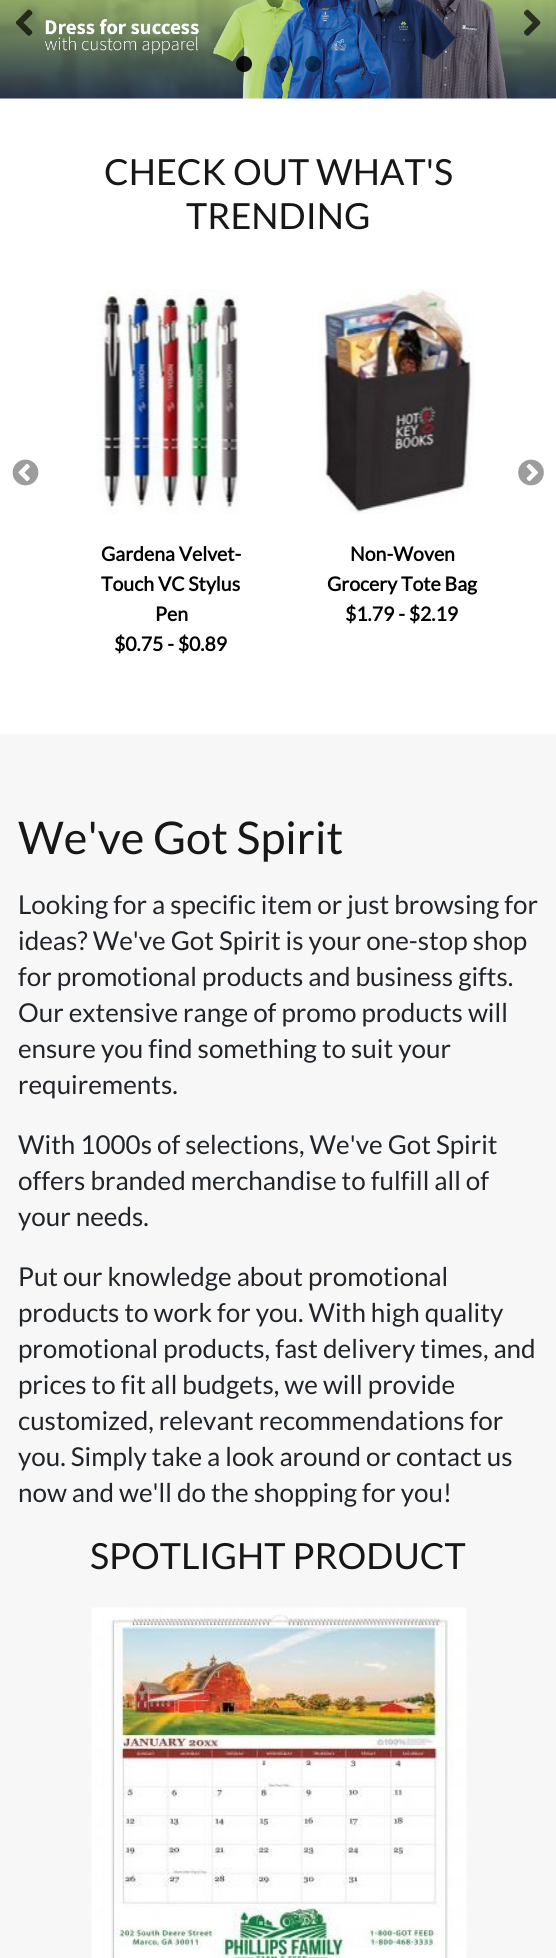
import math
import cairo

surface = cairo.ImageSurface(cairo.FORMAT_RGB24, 556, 1958)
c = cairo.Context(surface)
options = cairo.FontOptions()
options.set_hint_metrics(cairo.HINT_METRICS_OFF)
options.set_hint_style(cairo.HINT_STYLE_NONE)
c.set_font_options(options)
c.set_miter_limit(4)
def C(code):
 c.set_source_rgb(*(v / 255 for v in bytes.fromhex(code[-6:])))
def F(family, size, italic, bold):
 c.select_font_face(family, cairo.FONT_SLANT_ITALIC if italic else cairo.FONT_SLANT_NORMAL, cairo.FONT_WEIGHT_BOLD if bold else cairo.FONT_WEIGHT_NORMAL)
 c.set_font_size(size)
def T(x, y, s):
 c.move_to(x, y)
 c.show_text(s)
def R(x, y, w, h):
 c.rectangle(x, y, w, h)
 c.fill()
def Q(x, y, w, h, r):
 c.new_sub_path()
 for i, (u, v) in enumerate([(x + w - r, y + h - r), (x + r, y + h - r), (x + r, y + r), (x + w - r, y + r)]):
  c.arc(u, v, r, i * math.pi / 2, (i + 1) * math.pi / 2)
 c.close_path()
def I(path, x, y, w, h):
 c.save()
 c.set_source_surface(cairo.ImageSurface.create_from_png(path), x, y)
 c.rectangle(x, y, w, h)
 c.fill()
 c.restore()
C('ffffff')
c.paint()
C('f7f7f7')
R(0,98,556,1)
I('1.png',0,0,556,99)
I('2.png',15,9,18,27)
I('3.png',524,9,17,27)
c.set_source_rgba(0,0,0,0.9)
c.arc(244,64,8,0,2 * math.pi)
c.fill()
c.set_source_rgba(0,0,0,0.5)
Q(270,56,17,16,8)
c.fill()
c.arc(313,64,8,0,2 * math.pi)
c.fill()
F('Lato',36,0,0)
C('171717')
T(104,185,'CHECK OUT WHAT\'S')
T(186,229,'TRENDING')
I('4.png',12,459,27,27)
I('5.png',518,459,26,27)
I('6.png',96,289,144,225)
F('Lato',19.5,0,1)
C('000000')
T(101,561,'Gardena Velvet-')
T(101,591,'Touch VC Stylus')
T(155,621,'Pen')
T(114,651,'$0.75 - $0.89')
I('7.png',317,289,158,225)
T(350,561,'Non-Woven')
T(327,591,'Grocery Tote Bag')
T(345,621,'$1.79 - $2.19')
C('f7f7f7')
R(0,734,556,1224)
F('Lato',45,0,0)
C('171717')
T(18,854,'We\'ve Got Spirit')
F('Lato',26,0,0)
C('212529')
T(18,914,'Looking for a specific item or just browsing for')
T(18,950,'ideas? We\'ve Got Spirit is your one-stop shop')
T(18,986,'for promotional products and business gifts.')
T(18,1022,'Our extensive range of promo products will')
T(18,1058,'ensure you find something to suit your')
T(18,1094,'requirements.')
T(18,1154,'With 1000s of selections, We\'ve Got Spirit')
T(18,1190,'offers branded merchandise to fulfill all of')
T(18,1226,'your needs.')
T(18,1286,'Put our knowledge about promotional')
T(18,1322,'products to work for you. With high quality')
T(18,1358,'promotional products, fast delivery times, and')
T(18,1394,'prices to fit all budgets, we will provide')
T(18,1430,'customized, relevant recommendations for')
T(18,1466,'you. Simply take a look around or contact us')
T(18,1502,'now and we\'ll do the shopping for you!')
F('Lato',36,0,0)
C('171717')
T(90,1569,'SPOTLIGHT PRODUCT')
I('8.png',91,1607,376,351)
surface.write_to_png('o.png')
